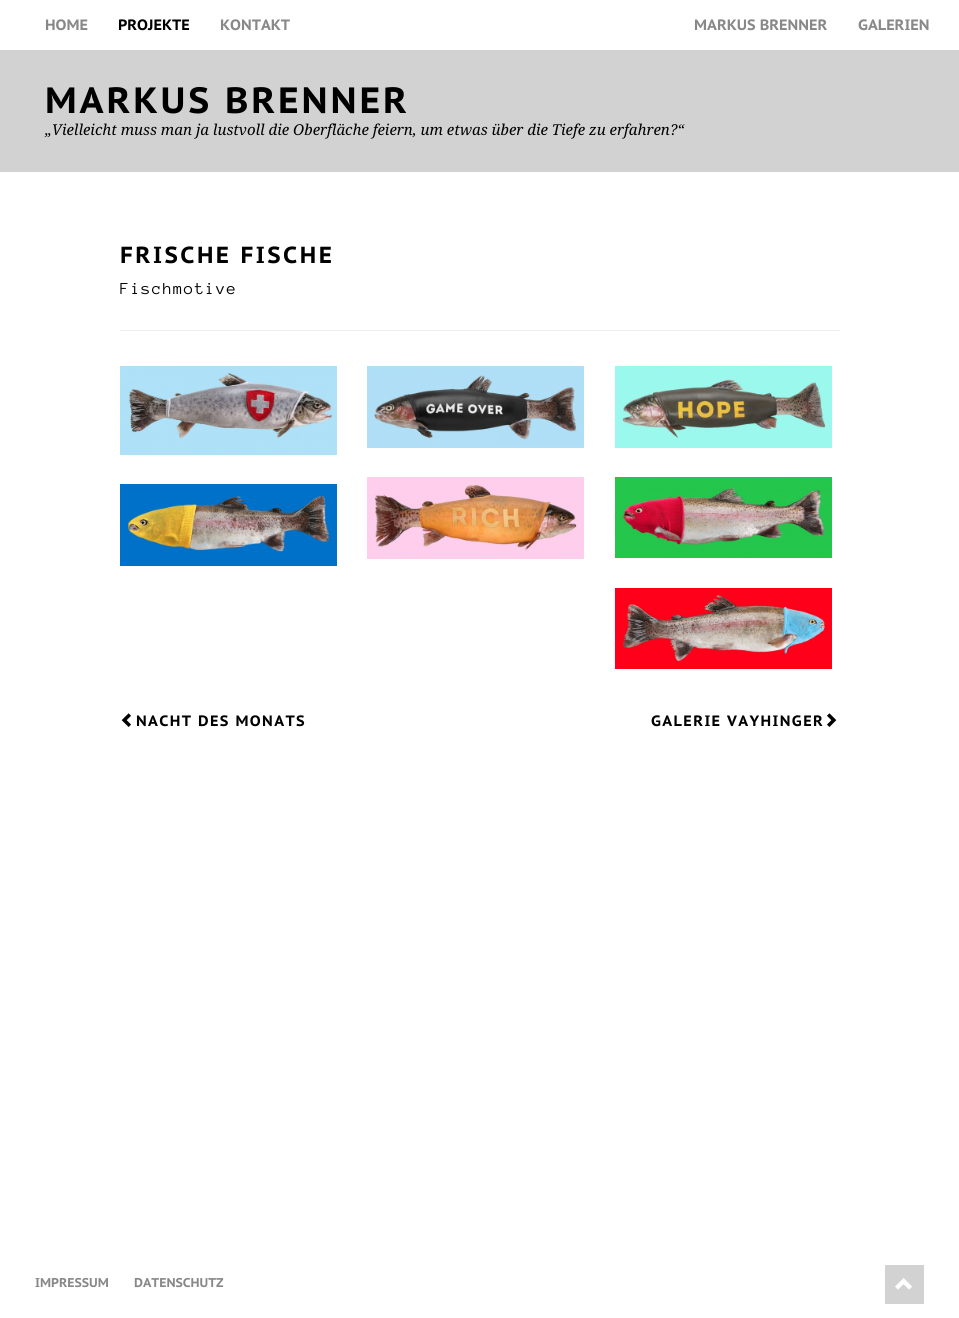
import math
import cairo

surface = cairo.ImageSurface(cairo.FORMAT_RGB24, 959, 1318)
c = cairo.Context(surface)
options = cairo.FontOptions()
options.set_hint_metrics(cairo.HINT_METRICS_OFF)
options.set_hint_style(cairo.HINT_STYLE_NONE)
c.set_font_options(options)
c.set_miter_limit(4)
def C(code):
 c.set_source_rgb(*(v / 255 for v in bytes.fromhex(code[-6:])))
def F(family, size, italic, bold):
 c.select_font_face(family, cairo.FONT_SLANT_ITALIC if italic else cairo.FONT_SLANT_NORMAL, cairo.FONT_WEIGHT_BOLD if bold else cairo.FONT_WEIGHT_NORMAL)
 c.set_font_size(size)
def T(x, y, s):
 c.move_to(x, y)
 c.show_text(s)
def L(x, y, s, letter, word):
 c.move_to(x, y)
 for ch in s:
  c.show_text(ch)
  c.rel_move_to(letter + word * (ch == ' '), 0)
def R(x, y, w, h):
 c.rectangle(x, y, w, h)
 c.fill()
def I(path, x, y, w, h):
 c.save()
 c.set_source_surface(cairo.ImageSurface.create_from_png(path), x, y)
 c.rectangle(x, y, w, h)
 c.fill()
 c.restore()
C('ffffff')
c.paint()
F('PT Sans Caption',15,0,1)
C('888888')
T(45,30,'HOME')
C('000000')
T(118,30,'PROJEKTE')
C('888888')
T(220,30,'KONTAKT')
T(694,30,'MARKUS BRENNER')
T(858,30,'GALERIEN')
C('d2d2d2')
R(0,50,959,122)
F('PT Sans Caption',36.5,0,1)
C('000000')
L(45,113,'MARKUS BRENNER',2.9,0)
F('Droid Serif',15,1,0)
T(45,135,'„Vielleicht muss man ja lustvoll die Oberfläche feiern, um etwas über die Tiefe zu erfahren?“')
F('PT Sans Caption',23.25,0,1)
L(120,263,'FRISCHE FISCHE',2.5,0)
F('Anonymous Pro',17.25,0,0)
L(120,294,'Fischmotive',1.25,0)
C('eeeeee')
R(120,330,720,1)
I('1.png',120,366,217,89)
I('2.png',367,366,217,82)
I('3.png',615,366,217,82)
I('4.png',120,484,217,82)
I('5.png',367,477,217,82)
I('6.png',615,477,217,81)
I('7.png',615,588,217,81)
I('8.png',121,713,10,14)
F('PT Sans Caption',15,0,1)
C('000000')
L(136,726,'NACHT DES MONATS',1.4,0)
L(651,726,'GALERIE VAYHINGER',1.4,0)
I('9.png',827,713,10,14)
F('PT Sans Caption',12.75,0,1)
C('888888')
T(35,1287,'IMPRESSUM')
T(134,1287,'DATENSCHUTZ')
C('d2d2d2')
R(885,1265,39,39)
I('10.png',895,1278,17,12)
surface.write_to_png('o.png')
